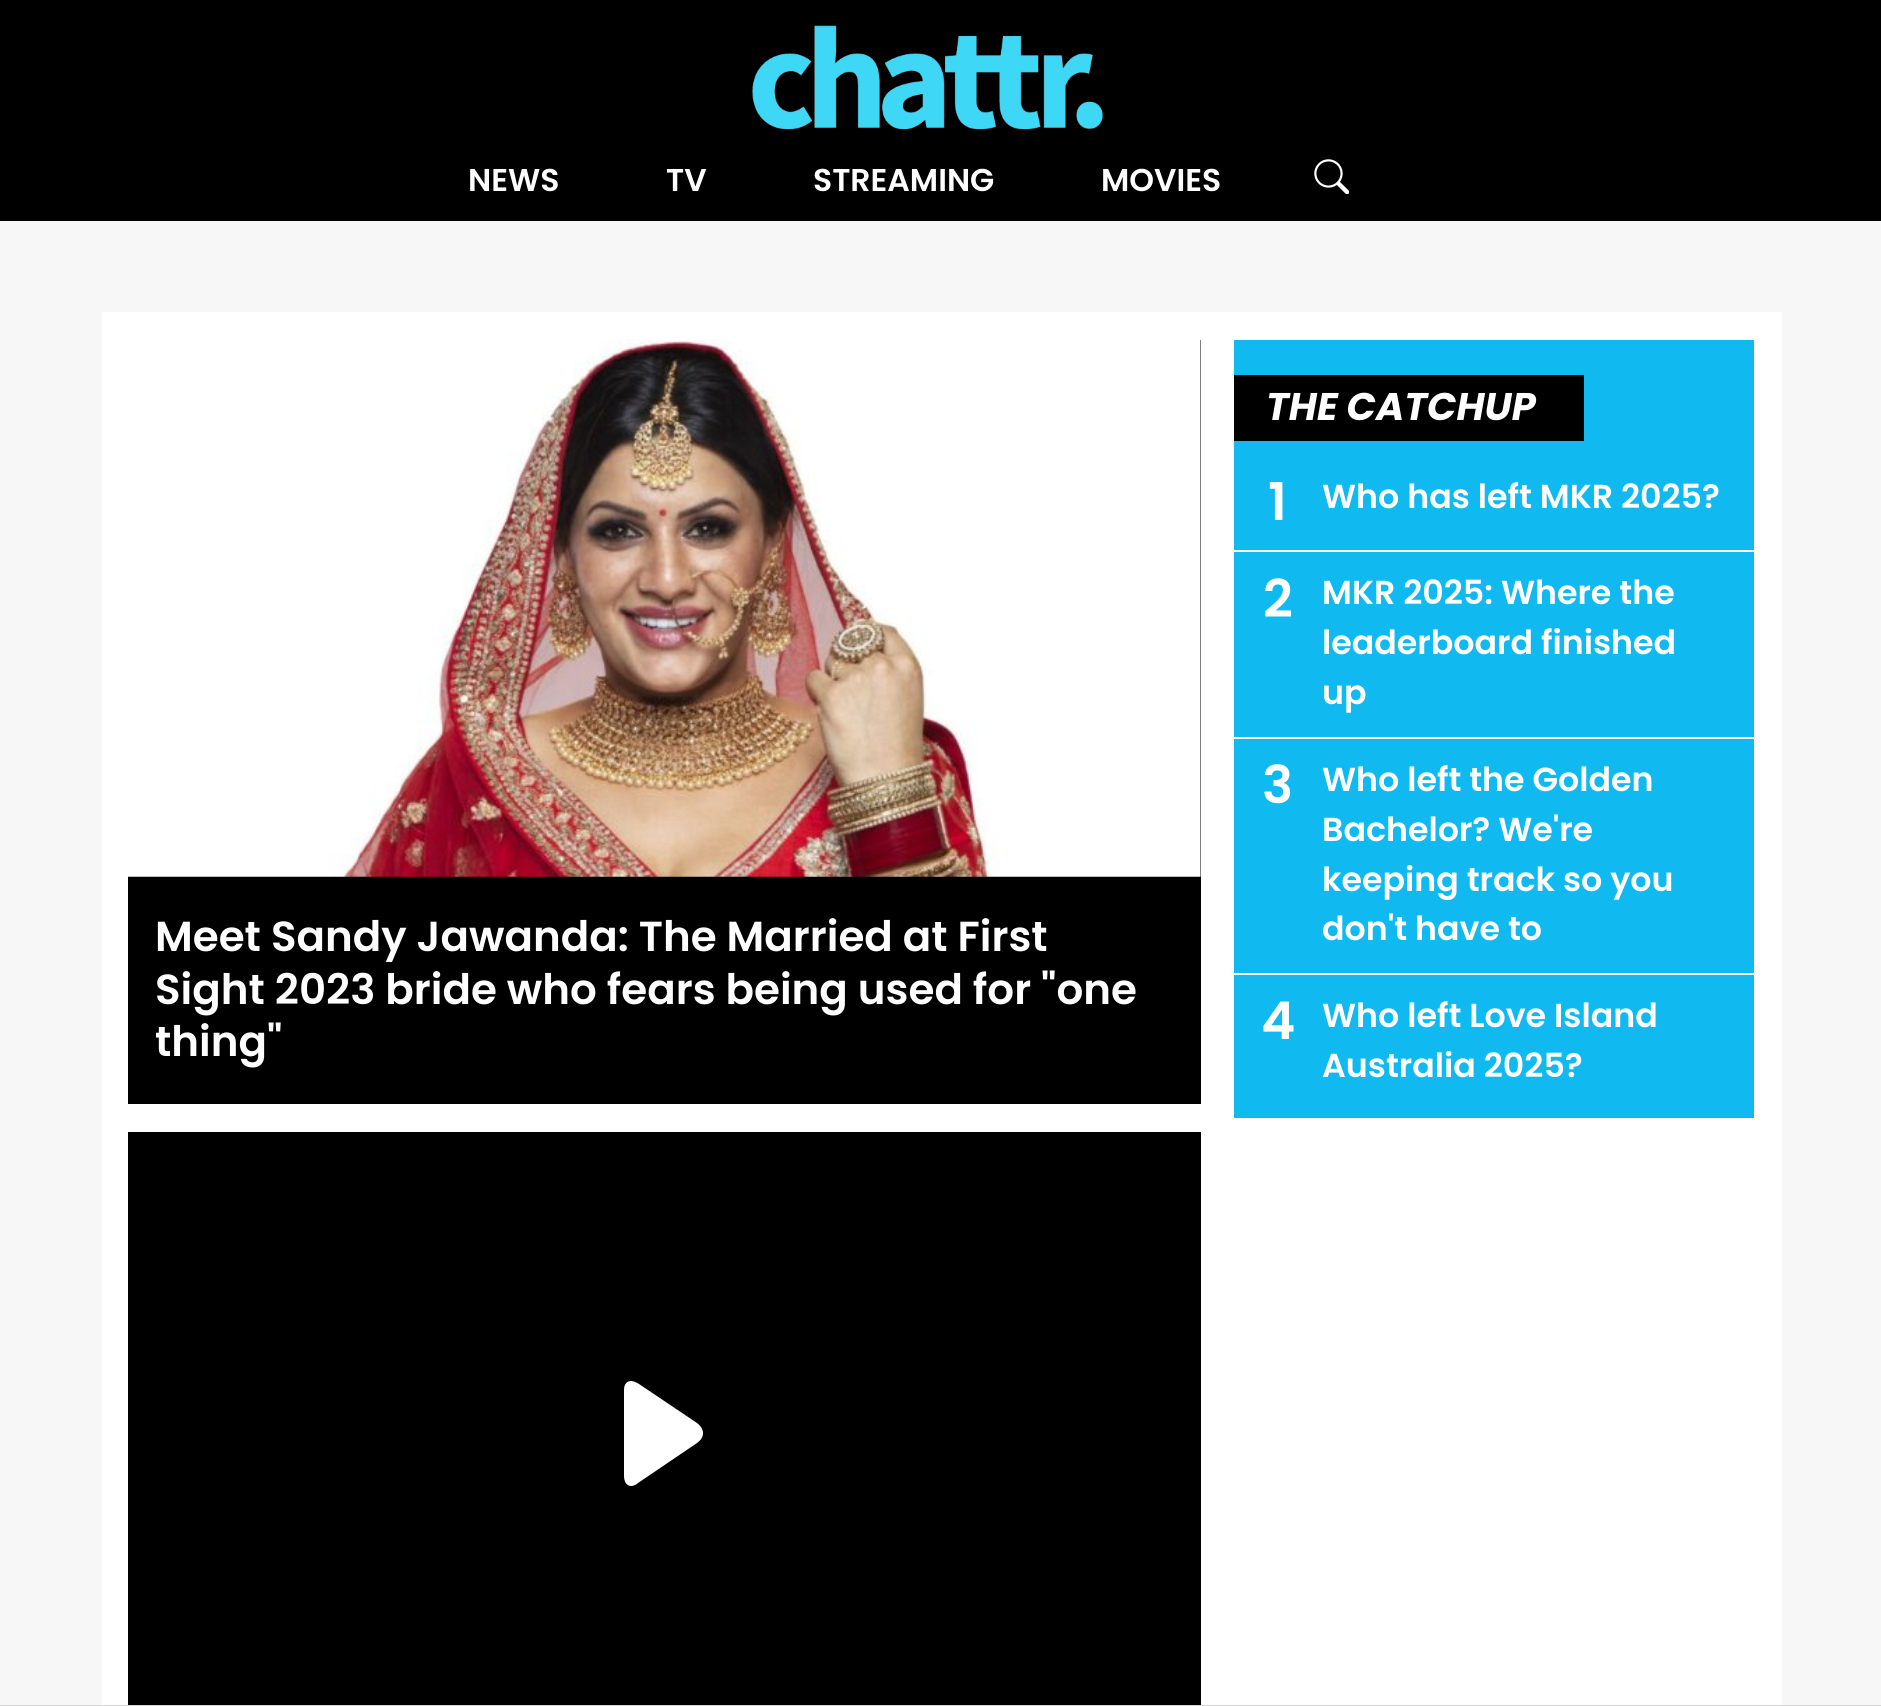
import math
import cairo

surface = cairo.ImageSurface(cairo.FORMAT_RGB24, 1881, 1706)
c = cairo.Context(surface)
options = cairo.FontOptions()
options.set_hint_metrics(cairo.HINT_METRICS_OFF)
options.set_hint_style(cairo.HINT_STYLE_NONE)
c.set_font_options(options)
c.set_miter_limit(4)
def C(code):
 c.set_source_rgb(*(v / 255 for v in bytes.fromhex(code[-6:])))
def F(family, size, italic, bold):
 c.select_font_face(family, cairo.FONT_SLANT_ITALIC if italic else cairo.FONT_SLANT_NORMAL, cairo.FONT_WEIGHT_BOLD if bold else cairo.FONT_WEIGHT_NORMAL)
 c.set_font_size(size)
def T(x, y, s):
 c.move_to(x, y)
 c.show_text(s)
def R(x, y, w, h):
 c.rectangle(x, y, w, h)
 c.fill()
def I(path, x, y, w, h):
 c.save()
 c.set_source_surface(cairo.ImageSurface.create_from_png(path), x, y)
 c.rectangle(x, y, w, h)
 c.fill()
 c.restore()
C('f7f7f7')
c.paint()
C('000000')
R(0,0,1881,221)
I('1.png',752,25,351,104)
F('Poppins SemiBold',31.5,0,0)
C('ffffff')
T(468,191,'NEWS')
T(666,191,'TV')
T(813,191,'STREAMING')
T(1101,191,'MOVIES')
I('2.png',1314,159,35,35)
R(102,312,1680,1393)
C('000000')
R(128,340,1073,764)
I('3.png',128,339,1073,538)
F('Poppins SemiBold',42,0,0)
C('ffffff')
T(155,951,'Meet Sandy Jawanda: The Married at First')
T(155,1004,'Sight 2023 bride who fears being used for "one')
T(155,1056,'thing"')
C('000000')
R(128,1132,1073,573)
C('ffffff')
c.new_path()
c.move_to(697,1423)
c.line_to(639,1384)
c.curve_to(636,1382,633,1381,631,1381)
c.curve_to(627,1381,624,1384,624,1390)
c.line_to(624,1476)
c.curve_to(624,1482,627,1486,631,1486)
c.curve_to(633,1486,636,1485,638,1483)
c.line_to(697,1443)
c.curve_to(701,1440,703,1437,703,1433)
c.curve_to(703,1430,701,1426,697,1423)
c.close_path()
c.fill()
C('10baf0')
R(1234,340,520,778)
C('000000')
R(1234,375,350,66)
F('Poppins',38.5,1,1)
C('ffffff')
T(1266,420,'THE CATCHUP')
R(1234,550,520,2)
F('Poppins SemiBold',52,0,0)
T(1268,520,'1')
F('Poppins SemiBold',33.25,0,0)
T(1322,508,'Who has left MKR 2025?')
R(1234,737,520,2)
F('Poppins SemiBold',52,0,0)
T(1263,617,'2')
F('Poppins SemiBold',33.25,0,0)
T(1322,604,'MKR 2025: Where the')
T(1322,654,'leaderboard finished')
T(1322,704,'up')
R(1234,973,520,2)
F('Poppins SemiBold',52,0,0)
T(1262,803,'3')
F('Poppins SemiBold',33.25,0,0)
T(1322,791,'Who left the Golden')
T(1322,841,'Bachelor? We\'re')
T(1322,891,'keeping track so you')
T(1322,940,'don\'t have to')
F('Poppins SemiBold',52,0,0)
T(1261,1039,'4')
F('Poppins SemiBold',33.25,0,0)
T(1322,1027,'Who left Love Island')
T(1322,1077,'Australia 2025?')
C('d3d3d3')
R(0,1705,1881,1)
surface.write_to_png('o.png')
